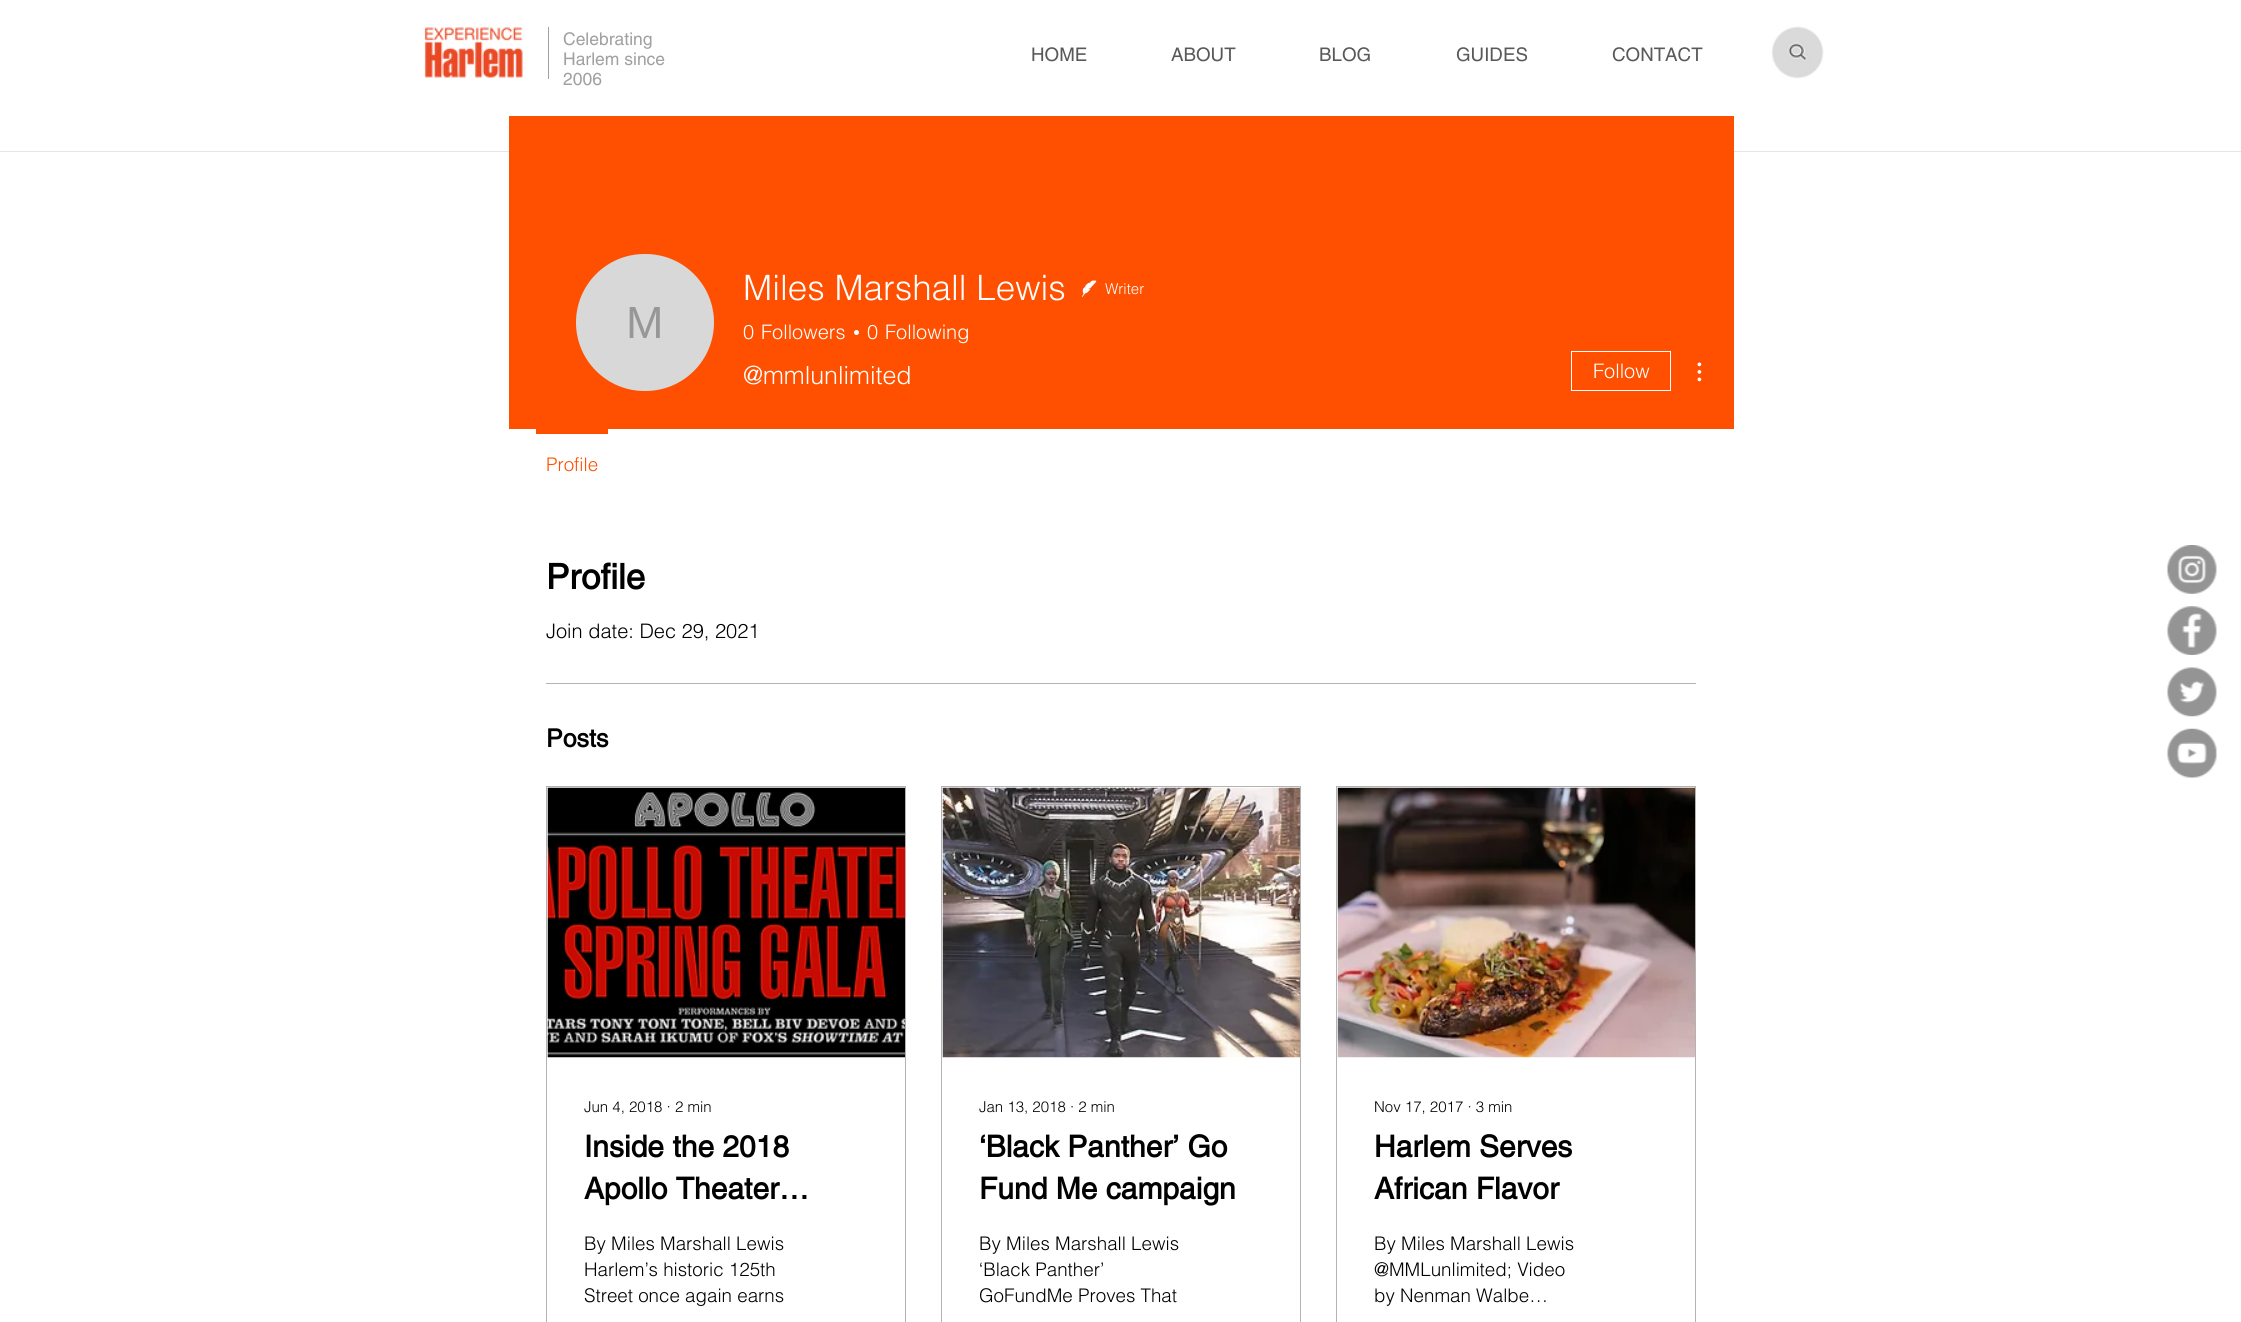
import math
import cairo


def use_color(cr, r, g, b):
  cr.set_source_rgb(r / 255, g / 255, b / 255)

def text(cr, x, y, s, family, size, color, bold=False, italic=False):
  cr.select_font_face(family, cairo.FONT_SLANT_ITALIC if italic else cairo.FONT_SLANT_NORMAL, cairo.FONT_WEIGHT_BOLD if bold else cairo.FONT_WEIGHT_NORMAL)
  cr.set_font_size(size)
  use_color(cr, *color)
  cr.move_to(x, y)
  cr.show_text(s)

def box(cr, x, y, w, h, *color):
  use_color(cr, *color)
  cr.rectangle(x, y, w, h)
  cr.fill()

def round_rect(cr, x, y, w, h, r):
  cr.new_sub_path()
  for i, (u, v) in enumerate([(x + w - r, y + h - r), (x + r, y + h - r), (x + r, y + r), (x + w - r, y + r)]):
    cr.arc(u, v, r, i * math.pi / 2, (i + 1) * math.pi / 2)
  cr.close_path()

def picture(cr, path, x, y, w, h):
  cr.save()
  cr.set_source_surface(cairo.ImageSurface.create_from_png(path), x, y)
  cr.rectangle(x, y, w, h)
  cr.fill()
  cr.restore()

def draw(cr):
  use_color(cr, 255, 255, 255)
  cr.paint()
  picture(cr, "img_01.png", 424, 27, 99, 51)
  box(cr, 548, 27, 1, 52, 160, 160, 160)
  picture(cr, "img_02.png", 1771, 26, 53, 53)
  box(cr, 0, 151, 2241, 1, 230, 230, 230)
  box(cr, 509, 116, 1225, 313, 254, 80, 0)
  use_color(cr, 216, 216, 216)
  round_rect(cr, 576, 254, 138, 137, 68.5)
  cr.fill()
  picture(cr, "img_03.png", 1082, 280, 15, 17)
  use_color(cr, 255, 255, 255)
  cr.arc(856.5, 332.5, 2.5, 0, 2 * math.pi)
  cr.fill()
  cr.rectangle(1571.5, 351.5, 99, 39)
  cr.set_line_width(1)
  cr.stroke()
  picture(cr, "img_04.png", 1697, 362, 5, 20)
  box(cr, 536, 429, 72, 5, 254, 80, 0)
  box(cr, 546, 683, 1150, 1, 179, 179, 179)
  cr.rectangle(546.5, 786.5, 359, 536)
  cr.stroke()
  picture(cr, "img_05.png", 547, 787, 358, 271)
  cr.rectangle(941.5, 786.5, 359, 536)
  cr.stroke()
  picture(cr, "img_06.png", 942, 787, 358, 271)
  cr.rectangle(1336.5, 786.5, 359, 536)
  cr.stroke()
  picture(cr, "img_07.png", 1337, 787, 358, 271)
  picture(cr, "img_08.png", 2167, 545, 50, 49)
  picture(cr, "img_09.png", 2167, 606, 50, 49)
  picture(cr, "img_10.png", 2167, 667, 50, 50)
  picture(cr, "img_11.png", 2167, 728, 50, 50)
  text(cr, 563, 45, "Celebrating", "helvetica", 17.5, (160, 160, 160))
  text(cr, 563, 65, "Harlem since", "helvetica", 17.5, (160, 160, 160))
  text(cr, 563, 85, "2006", "helvetica", 17.5, (160, 160, 160))
  text(cr, 1031, 61, "HOME", "helvetica", 18.75, (89, 89, 89))
  text(cr, 1171, 61, "ABOUT", "helvetica", 18.75, (89, 89, 89))
  text(cr, 1319, 61, "BLOG", "helvetica", 18.75, (89, 89, 89))
  text(cr, 1456, 61, "GUIDES", "helvetica", 18.75, (89, 89, 89))
  text(cr, 1612, 61, "CONTACT", "helvetica", 18.75, (89, 89, 89))
  text(cr, 626, 338, "M", "Liberation Sans", 45, (151, 151, 151))
  text(cr, 743, 300, "Miles Marshall Lewis", "helvetica Light", 35, (255, 255, 255))
  text(cr, 1105, 294, "Writer", "helvetica Light", 15, (255, 255, 255))
  text(cr, 743, 339, "0", "helvetica Light", 20, (255, 255, 255))
  text(cr, 761, 339, "Followers", "helvetica Light", 20, (255, 255, 255))
  text(cr, 867, 339, "0", "helvetica Light", 20, (255, 255, 255))
  text(cr, 885, 339, "Following", "helvetica Light", 20, (255, 255, 255))
  text(cr, 743, 384, "@mmlunlimited", "helvetica Light", 25, (255, 255, 255))
  text(cr, 1593, 378, "Follow", "helvetica Light", 20, (255, 255, 255))
  text(cr, 546, 471, "Profile", "helvetica Light", 18.75, (254, 80, 0))
  text(cr, 546, 589, "Profile", "helvetica", 35, (0, 0, 0), bold=True)
  text(cr, 546, 638, "Join date: Dec 29, 2021", "helvetica Light", 20, (0, 0, 0))
  text(cr, 546, 747, "Posts", "helvetica", 25, (0, 0, 0), bold=True)
  text(cr, 584, 1112, "Jun 4, 2018 ∙ 2 min", "helvetica Light", 15, (0, 0, 0))
  text(cr, 584, 1157, "Inside the 2018", "helvetica", 30, (0, 0, 0), bold=True)
  text(cr, 584, 1199, "Apollo Theater…", "helvetica", 30, (0, 0, 0), bold=True)
  text(cr, 584, 1250, "By Miles Marshall Lewis", "helvetica Light", 18.75, (0, 0, 0))
  text(cr, 584, 1276, "Harlem’s historic 125th", "helvetica Light", 18.75, (0, 0, 0))
  text(cr, 584, 1302, "Street once again earns", "helvetica Light", 18.75, (0, 0, 0))
  text(cr, 979, 1112, "Jan 13, 2018 ∙ 2 min", "helvetica Light", 15, (0, 0, 0))
  text(cr, 979, 1157, "‘Black Panther’ Go", "helvetica", 30, (0, 0, 0), bold=True)
  text(cr, 979, 1199, "Fund Me campaign", "helvetica", 30, (0, 0, 0), bold=True)
  text(cr, 979, 1250, "By Miles Marshall Lewis", "helvetica Light", 18.75, (0, 0, 0))
  text(cr, 979, 1276, "‘Black Panther’", "helvetica Light", 18.75, (0, 0, 0))
  text(cr, 979, 1302, "GoFundMe Proves That", "helvetica Light", 18.75, (0, 0, 0))
  text(cr, 1374, 1112, "Nov 17, 2017 ∙ 3 min", "helvetica Light", 15, (0, 0, 0))
  text(cr, 1374, 1157, "Harlem Serves", "helvetica", 30, (0, 0, 0), bold=True)
  text(cr, 1374, 1199, "African Flavor", "helvetica", 30, (0, 0, 0), bold=True)
  text(cr, 1374, 1250, "By Miles Marshall Lewis", "helvetica Light", 18.75, (0, 0, 0))
  text(cr, 1374, 1276, "@MMLunlimited; Video", "helvetica Light", 18.75, (0, 0, 0))
  text(cr, 1374, 1302, "by Nenman Walbe…", "helvetica Light", 18.75, (0, 0, 0))


surface = cairo.ImageSurface(cairo.FORMAT_RGB24, 2241, 1322)
cr = cairo.Context(surface)
options = cairo.FontOptions()
options.set_hint_metrics(cairo.HINT_METRICS_OFF)
options.set_hint_style(cairo.HINT_STYLE_NONE)
cr.set_font_options(options)
cr.set_miter_limit(4)
draw(cr)
surface.write_to_png("out.png")
